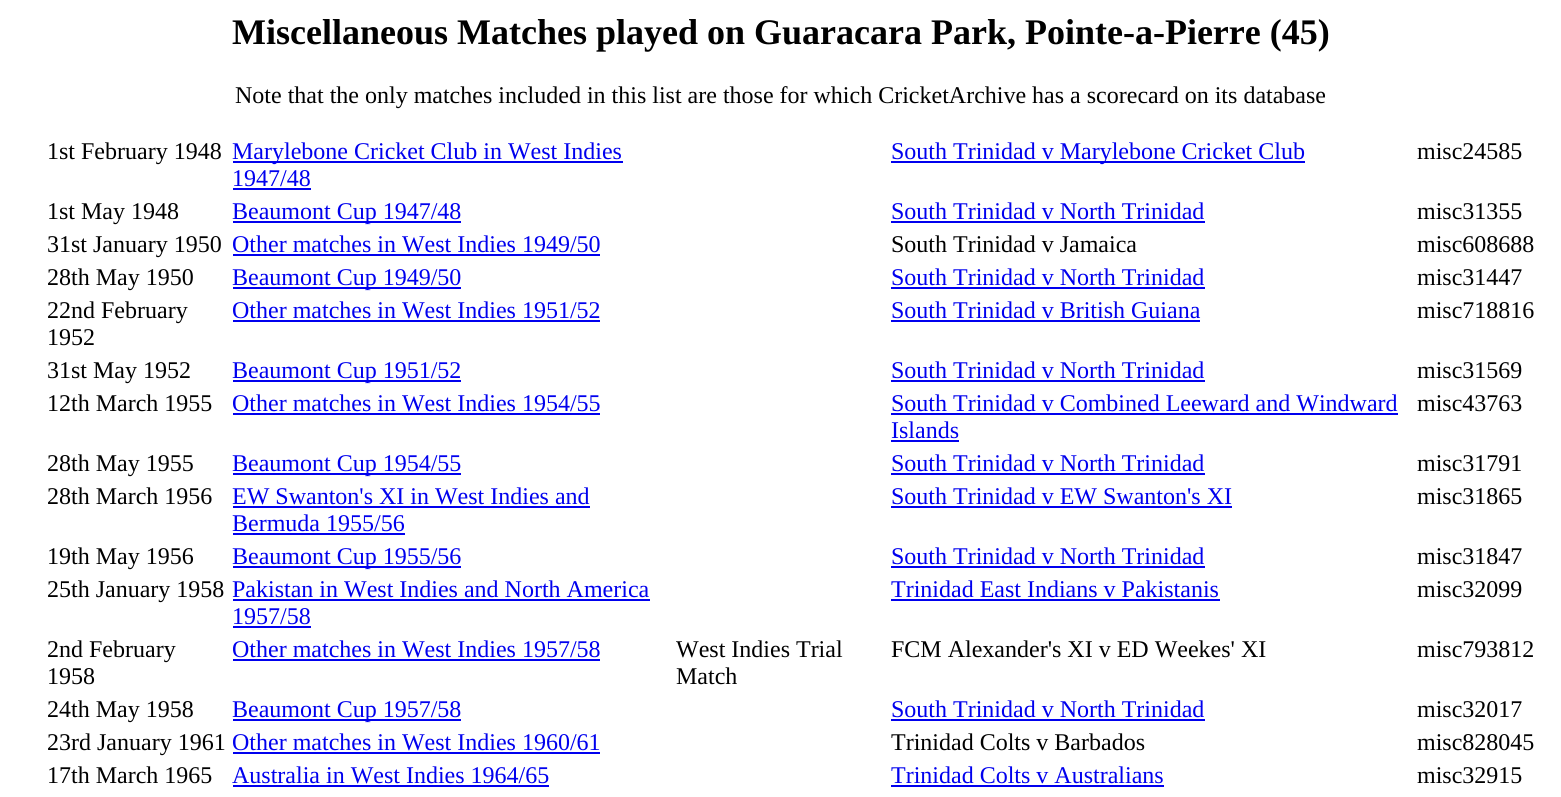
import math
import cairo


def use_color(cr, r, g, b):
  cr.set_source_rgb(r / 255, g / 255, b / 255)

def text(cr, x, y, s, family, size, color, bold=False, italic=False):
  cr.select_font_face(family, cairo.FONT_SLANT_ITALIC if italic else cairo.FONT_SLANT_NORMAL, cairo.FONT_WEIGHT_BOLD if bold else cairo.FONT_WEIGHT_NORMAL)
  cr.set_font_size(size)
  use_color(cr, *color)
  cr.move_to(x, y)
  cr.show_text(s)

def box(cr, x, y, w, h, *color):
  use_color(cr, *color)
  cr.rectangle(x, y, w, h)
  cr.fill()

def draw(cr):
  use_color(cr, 255, 255, 255)
  cr.paint()
  box(cr, 233, 161, 390, 2, 0, 0, 238)
  box(cr, 233, 188, 78, 2, 0, 0, 238)
  box(cr, 891, 161, 414, 2, 0, 0, 238)
  box(cr, 233, 221, 228, 2, 0, 0, 238)
  box(cr, 891, 221, 314, 2, 0, 0, 238)
  box(cr, 233, 254, 367, 2, 0, 0, 238)
  box(cr, 233, 287, 228, 2, 0, 0, 238)
  box(cr, 891, 287, 314, 2, 0, 0, 238)
  box(cr, 233, 320, 367, 2, 0, 0, 238)
  box(cr, 891, 320, 309, 2, 0, 0, 238)
  box(cr, 233, 380, 228, 2, 0, 0, 238)
  box(cr, 891, 380, 314, 2, 0, 0, 238)
  box(cr, 233, 413, 367, 2, 0, 0, 238)
  box(cr, 891, 413, 507, 2, 0, 0, 238)
  box(cr, 891, 440, 68, 2, 0, 0, 238)
  box(cr, 233, 473, 228, 2, 0, 0, 238)
  box(cr, 891, 473, 314, 2, 0, 0, 238)
  box(cr, 233, 506, 357, 2, 0, 0, 238)
  box(cr, 233, 533, 172, 2, 0, 0, 238)
  box(cr, 891, 506, 341, 2, 0, 0, 238)
  box(cr, 233, 566, 228, 2, 0, 0, 238)
  box(cr, 891, 566, 314, 2, 0, 0, 238)
  box(cr, 233, 599, 417, 2, 0, 0, 238)
  box(cr, 233, 626, 78, 2, 0, 0, 238)
  box(cr, 891, 599, 329, 2, 0, 0, 238)
  box(cr, 233, 659, 367, 2, 0, 0, 238)
  box(cr, 233, 719, 228, 2, 0, 0, 238)
  box(cr, 891, 719, 314, 2, 0, 0, 238)
  box(cr, 233, 752, 367, 2, 0, 0, 238)
  box(cr, 233, 785, 316, 2, 0, 0, 238)
  box(cr, 891, 785, 273, 2, 0, 0, 238)
  text(cr, 232, 44, "Miscellaneous Matches played on Guaracara Park, Pointe-a-Pierre (45)", "Liberation Serif", 36, (0, 0, 0), bold=True)
  text(cr, 235, 103, "Note that the only matches included in this list are those for which CricketArchive has a scorecard on its database", "Liberation Serif", 24, (0, 0, 0))
  text(cr, 47, 159, "1st February 1948", "Liberation Serif", 24, (0, 0, 0))
  text(cr, 232, 159, "Marylebone Cricket Club in West Indies", "Liberation Serif", 24, (0, 0, 238))
  text(cr, 232, 186, "1947/48", "Liberation Serif", 24, (0, 0, 238))
  text(cr, 891, 159, "South Trinidad v Marylebone Cricket Club", "Liberation Serif", 24, (0, 0, 238))
  text(cr, 1417, 159, "misc24585", "Liberation Serif", 24, (0, 0, 0))
  text(cr, 47, 219, "1st May 1948", "Liberation Serif", 24, (0, 0, 0))
  text(cr, 232, 219, "Beaumont Cup 1947/48", "Liberation Serif", 24, (0, 0, 238))
  text(cr, 891, 219, "South Trinidad v North Trinidad", "Liberation Serif", 24, (0, 0, 238))
  text(cr, 1417, 219, "misc31355", "Liberation Serif", 24, (0, 0, 0))
  text(cr, 47, 252, "31st January 1950", "Liberation Serif", 24, (0, 0, 0))
  text(cr, 232, 252, "Other matches in West Indies 1949/50", "Liberation Serif", 24, (0, 0, 238))
  text(cr, 891, 252, "South Trinidad v Jamaica", "Liberation Serif", 24, (0, 0, 0))
  text(cr, 1417, 252, "misc608688", "Liberation Serif", 24, (0, 0, 0))
  text(cr, 47, 285, "28th May 1950", "Liberation Serif", 24, (0, 0, 0))
  text(cr, 232, 285, "Beaumont Cup 1949/50", "Liberation Serif", 24, (0, 0, 238))
  text(cr, 891, 285, "South Trinidad v North Trinidad", "Liberation Serif", 24, (0, 0, 238))
  text(cr, 1417, 285, "misc31447", "Liberation Serif", 24, (0, 0, 0))
  text(cr, 47, 318, "22nd February", "Liberation Serif", 24, (0, 0, 0))
  text(cr, 47, 345, "1952", "Liberation Serif", 24, (0, 0, 0))
  text(cr, 232, 318, "Other matches in West Indies 1951/52", "Liberation Serif", 24, (0, 0, 238))
  text(cr, 891, 318, "South Trinidad v British Guiana", "Liberation Serif", 24, (0, 0, 238))
  text(cr, 1417, 318, "misc718816", "Liberation Serif", 24, (0, 0, 0))
  text(cr, 47, 378, "31st May 1952", "Liberation Serif", 24, (0, 0, 0))
  text(cr, 232, 378, "Beaumont Cup 1951/52", "Liberation Serif", 24, (0, 0, 238))
  text(cr, 891, 378, "South Trinidad v North Trinidad", "Liberation Serif", 24, (0, 0, 238))
  text(cr, 1417, 378, "misc31569", "Liberation Serif", 24, (0, 0, 0))
  text(cr, 47, 411, "12th March 1955", "Liberation Serif", 24, (0, 0, 0))
  text(cr, 232, 411, "Other matches in West Indies 1954/55", "Liberation Serif", 24, (0, 0, 238))
  text(cr, 891, 411, "South Trinidad v Combined Leeward and Windward", "Liberation Serif", 24, (0, 0, 238))
  text(cr, 891, 438, "Islands", "Liberation Serif", 24, (0, 0, 238))
  text(cr, 1417, 411, "misc43763", "Liberation Serif", 24, (0, 0, 0))
  text(cr, 47, 471, "28th May 1955", "Liberation Serif", 24, (0, 0, 0))
  text(cr, 232, 471, "Beaumont Cup 1954/55", "Liberation Serif", 24, (0, 0, 238))
  text(cr, 891, 471, "South Trinidad v North Trinidad", "Liberation Serif", 24, (0, 0, 238))
  text(cr, 1417, 471, "misc31791", "Liberation Serif", 24, (0, 0, 0))
  text(cr, 47, 504, "28th March 1956", "Liberation Serif", 24, (0, 0, 0))
  text(cr, 232, 504, "EW Swanton's XI in West Indies and", "Liberation Serif", 24, (0, 0, 238))
  text(cr, 232, 531, "Bermuda 1955/56", "Liberation Serif", 24, (0, 0, 238))
  text(cr, 891, 504, "South Trinidad v EW Swanton's XI", "Liberation Serif", 24, (0, 0, 238))
  text(cr, 1417, 504, "misc31865", "Liberation Serif", 24, (0, 0, 0))
  text(cr, 47, 564, "19th May 1956", "Liberation Serif", 24, (0, 0, 0))
  text(cr, 232, 564, "Beaumont Cup 1955/56", "Liberation Serif", 24, (0, 0, 238))
  text(cr, 891, 564, "South Trinidad v North Trinidad", "Liberation Serif", 24, (0, 0, 238))
  text(cr, 1417, 564, "misc31847", "Liberation Serif", 24, (0, 0, 0))
  text(cr, 47, 597, "25th January 1958", "Liberation Serif", 24, (0, 0, 0))
  text(cr, 232, 597, "Pakistan in West Indies and North America", "Liberation Serif", 24, (0, 0, 238))
  text(cr, 232, 624, "1957/58", "Liberation Serif", 24, (0, 0, 238))
  text(cr, 891, 597, "Trinidad East Indians v Pakistanis", "Liberation Serif", 24, (0, 0, 238))
  text(cr, 1417, 597, "misc32099", "Liberation Serif", 24, (0, 0, 0))
  text(cr, 47, 657, "2nd February", "Liberation Serif", 24, (0, 0, 0))
  text(cr, 47, 684, "1958", "Liberation Serif", 24, (0, 0, 0))
  text(cr, 232, 657, "Other matches in West Indies 1957/58", "Liberation Serif", 24, (0, 0, 238))
  text(cr, 676, 657, "West Indies Trial", "Liberation Serif", 24, (0, 0, 0))
  text(cr, 676, 684, "Match", "Liberation Serif", 24, (0, 0, 0))
  text(cr, 891, 657, "FCM Alexander's XI v ED Weekes' XI", "Liberation Serif", 24, (0, 0, 0))
  text(cr, 1417, 657, "misc793812", "Liberation Serif", 24, (0, 0, 0))
  text(cr, 47, 717, "24th May 1958", "Liberation Serif", 24, (0, 0, 0))
  text(cr, 232, 717, "Beaumont Cup 1957/58", "Liberation Serif", 24, (0, 0, 238))
  text(cr, 891, 717, "South Trinidad v North Trinidad", "Liberation Serif", 24, (0, 0, 238))
  text(cr, 1417, 717, "misc32017", "Liberation Serif", 24, (0, 0, 0))
  text(cr, 47, 750, "23rd January 1961", "Liberation Serif", 24, (0, 0, 0))
  text(cr, 232, 750, "Other matches in West Indies 1960/61", "Liberation Serif", 24, (0, 0, 238))
  text(cr, 891, 750, "Trinidad Colts v Barbados", "Liberation Serif", 24, (0, 0, 0))
  text(cr, 1417, 750, "misc828045", "Liberation Serif", 24, (0, 0, 0))
  text(cr, 47, 783, "17th March 1965", "Liberation Serif", 24, (0, 0, 0))
  text(cr, 232, 783, "Australia in West Indies 1964/65", "Liberation Serif", 24, (0, 0, 238))
  text(cr, 891, 783, "Trinidad Colts v Australians", "Liberation Serif", 24, (0, 0, 238))
  text(cr, 1417, 783, "misc32915", "Liberation Serif", 24, (0, 0, 0))


surface = cairo.ImageSurface(cairo.FORMAT_RGB24, 1561, 797)
cr = cairo.Context(surface)
options = cairo.FontOptions()
options.set_hint_metrics(cairo.HINT_METRICS_OFF)
options.set_hint_style(cairo.HINT_STYLE_NONE)
cr.set_font_options(options)
cr.set_miter_limit(4)
draw(cr)
surface.write_to_png("out.png")
